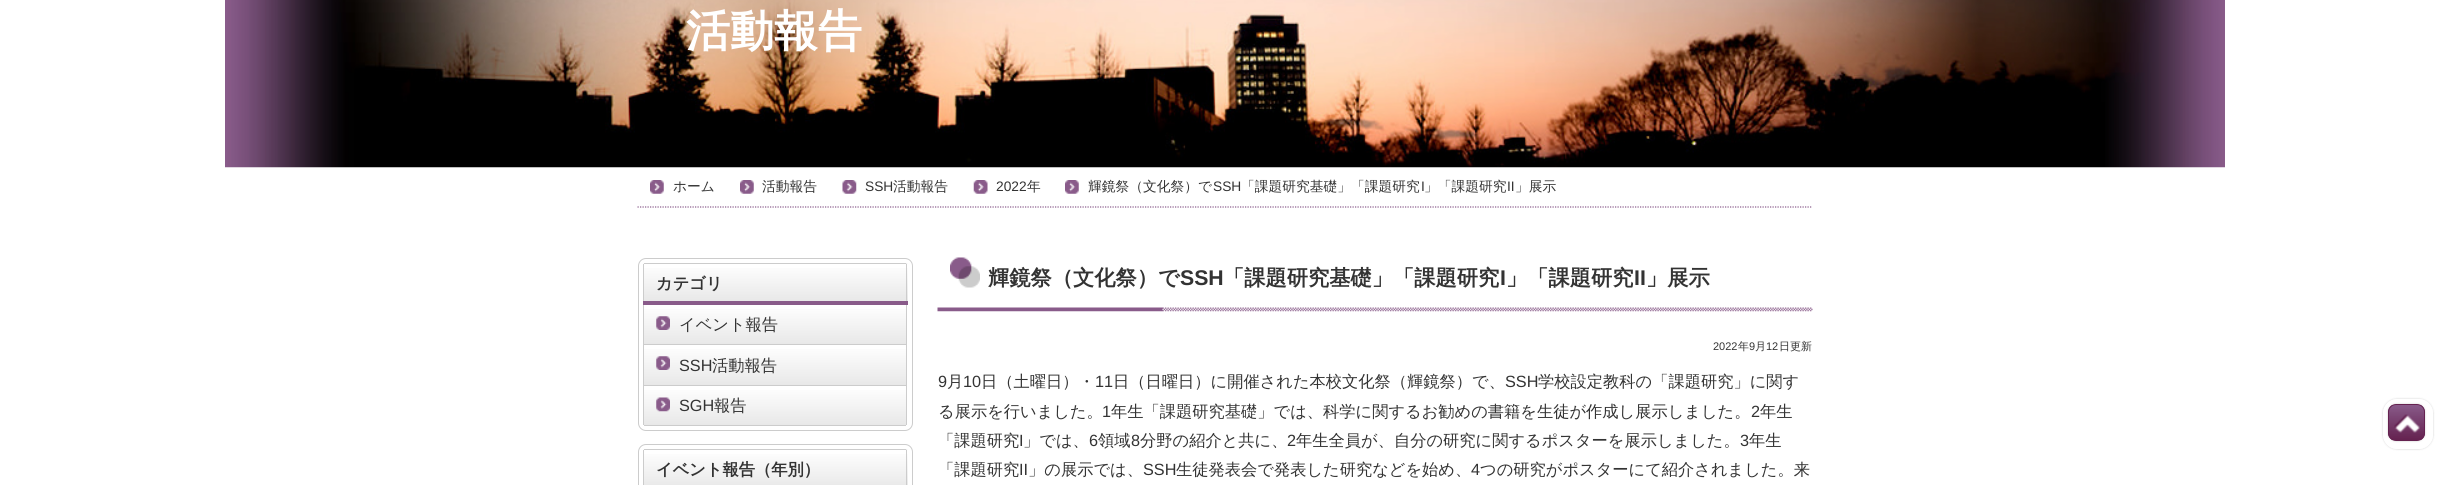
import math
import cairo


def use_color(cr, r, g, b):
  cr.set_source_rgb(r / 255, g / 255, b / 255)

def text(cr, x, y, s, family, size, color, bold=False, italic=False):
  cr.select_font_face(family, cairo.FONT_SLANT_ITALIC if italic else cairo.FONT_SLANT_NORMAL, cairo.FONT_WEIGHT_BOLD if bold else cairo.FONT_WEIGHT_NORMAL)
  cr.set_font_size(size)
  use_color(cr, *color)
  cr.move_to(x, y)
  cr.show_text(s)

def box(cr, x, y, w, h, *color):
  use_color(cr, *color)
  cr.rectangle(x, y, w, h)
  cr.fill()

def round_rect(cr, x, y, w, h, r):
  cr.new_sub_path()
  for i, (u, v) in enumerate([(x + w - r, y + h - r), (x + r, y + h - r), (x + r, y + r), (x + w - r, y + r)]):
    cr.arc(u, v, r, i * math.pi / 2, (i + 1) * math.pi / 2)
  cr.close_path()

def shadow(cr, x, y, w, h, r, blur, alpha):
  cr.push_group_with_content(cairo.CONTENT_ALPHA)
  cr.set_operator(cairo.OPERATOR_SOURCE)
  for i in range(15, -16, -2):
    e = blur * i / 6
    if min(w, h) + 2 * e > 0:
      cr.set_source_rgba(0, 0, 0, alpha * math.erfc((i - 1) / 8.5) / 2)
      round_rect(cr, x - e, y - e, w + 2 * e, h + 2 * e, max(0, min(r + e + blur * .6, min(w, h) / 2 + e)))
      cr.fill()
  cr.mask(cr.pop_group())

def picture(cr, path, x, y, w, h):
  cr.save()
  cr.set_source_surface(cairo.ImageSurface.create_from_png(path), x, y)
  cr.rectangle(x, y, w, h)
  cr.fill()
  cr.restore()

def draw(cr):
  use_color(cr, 255, 255, 255)
  cr.paint()
  picture(cr, "img_01.png", 225, 0, 2000, 168)
  cr.new_path()
  cr.move_to(637.5, 207)
  cr.line_to(1812.5, 207)
  use_color(cr, 137, 91, 138)
  cr.set_line_width(1.2)
  cr.set_dash([1.25, 1.25])
  cr.stroke()
  picture(cr, "img_02.png", 650, 180, 14, 14)
  picture(cr, "img_03.png", 740, 180, 14, 14)
  picture(cr, "img_04.png", 842, 180, 15, 14)
  picture(cr, "img_05.png", 973, 180, 15, 14)
  picture(cr, "img_02.png", 1065, 180, 14, 14)
  round_rect(cr, 638.5, 258.5, 274, 172, 7.5)
  use_color(cr, 204, 204, 204)
  cr.set_line_width(1)
  cr.set_dash([])
  cr.stroke()
  cr.save()
  cr.new_path()
  cr.move_to(645.5, 263)
  cr.line_to(905.5, 263)
  cr.curve_to(907, 263, 908, 264, 908, 265.5)
  cr.line_to(908, 301)
  cr.line_to(643, 301)
  cr.line_to(643, 265.5)
  cr.curve_to(643, 264, 644, 263, 645.5, 263)
  cr.close_path()
  cr.clip()
  gradient = cairo.LinearGradient(775, 226, 775, 264)
  gradient.add_color_stop_rgba(0, 1, 1, 1, 1)
  gradient.add_color_stop_rgba(1, 0.91, 0.91, 0.91, 1)
  cr.set_source(gradient)
  cr.rectangle(643, 263, 265, 1)
  cr.fill()
  cr.restore()
  gradient = cairo.LinearGradient(775, 264, 775, 301)
  gradient.add_color_stop_rgba(0, 1, 1, 1, 1)
  gradient.add_color_stop_rgba(1, 0.91, 0.91, 0.91, 1)
  cr.set_source(gradient)
  cr.rectangle(644, 268, 264, 33)
  cr.fill()
  box(cr, 644, 263, 262, 1, 204, 204, 204)
  box(cr, 906, 264, 1, 37, 204, 204, 204)
  box(cr, 643, 264, 1, 37, 204, 204, 204)
  box(cr, 643, 301, 265, 4, 137, 91, 138)
  box(cr, 906, 305, 1, 120, 204, 204, 204)
  box(cr, 644, 425, 262, 1, 204, 204, 204)
  box(cr, 643, 305, 1, 120, 204, 204, 204)
  gradient = cairo.LinearGradient(775, 305, 775, 344)
  gradient.add_color_stop_rgba(0, 1, 1, 1, 1)
  gradient.add_color_stop_rgba(1, 0.91, 0.91, 0.91, 1)
  cr.set_source(gradient)
  cr.rectangle(644, 309, 262, 35)
  cr.fill()
  picture(cr, "img_06.png", 656, 316, 14, 14)
  gradient = cairo.LinearGradient(775, 345, 775, 385)
  gradient.add_color_stop_rgba(0, 1, 1, 1, 1)
  gradient.add_color_stop_rgba(1, 0.91, 0.91, 0.91, 1)
  cr.set_source(gradient)
  cr.rectangle(644, 349, 262, 36)
  cr.fill()
  box(cr, 644, 344, 262, 1, 204, 204, 204)
  picture(cr, "img_07.png", 656, 356, 14, 14)
  gradient = cairo.LinearGradient(775, 386, 775, 425)
  gradient.add_color_stop_rgba(0, 1, 1, 1, 1)
  gradient.add_color_stop_rgba(1, 0.91, 0.91, 0.91, 1)
  cr.set_source(gradient)
  cr.rectangle(644, 390, 262, 35)
  cr.fill()
  box(cr, 644, 385, 262, 1, 204, 204, 204)
  picture(cr, "img_08.png", 656, 397, 14, 15)
  round_rect(cr, 638.5, 444.5, 274, 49, 7.5)
  cr.stroke()
  cr.save()
  cr.new_path()
  cr.move_to(645.5, 449)
  cr.line_to(905.5, 449)
  cr.curve_to(907, 449, 908, 450, 908, 451.5)
  cr.line_to(908, 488)
  cr.line_to(643, 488)
  cr.line_to(643, 451.5)
  cr.curve_to(643, 450, 644, 449, 645.5, 449)
  cr.close_path()
  cr.clip()
  gradient = cairo.LinearGradient(775, 413, 775, 450)
  gradient.add_color_stop_rgba(0, 1, 1, 1, 1)
  gradient.add_color_stop_rgba(1, 0.91, 0.91, 0.91, 1)
  cr.set_source(gradient)
  cr.rectangle(643, 449, 265, 1)
  cr.fill()
  cr.restore()
  gradient = cairo.LinearGradient(775, 450, 775, 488)
  gradient.add_color_stop_rgba(0, 1, 1, 1, 1)
  gradient.add_color_stop_rgba(1, 0.91, 0.91, 0.91, 1)
  cr.set_source(gradient)
  cr.rectangle(644, 454, 264, 31)
  cr.fill()
  box(cr, 644, 449, 262, 1, 204, 204, 204)
  box(cr, 906, 450, 1, 35, 204, 204, 204)
  box(cr, 643, 450, 1, 35, 204, 204, 204)
  picture(cr, "img_09.png", 937, 307, 876, 5)
  picture(cr, "img_10.png", 950, 257, 30, 31)
  cr.save()
  cr.set_fill_rule(cairo.FILL_RULE_EVEN_ODD)
  cr.new_path()
  cr.move_to(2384, 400)
  cr.line_to(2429, 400)
  cr.line_to(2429, 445)
  cr.line_to(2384, 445)
  cr.close_path()
  cr.move_to(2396, 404)
  cr.line_to(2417, 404)
  cr.curve_to(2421.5, 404, 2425, 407.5, 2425, 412)
  cr.line_to(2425, 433)
  cr.curve_to(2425, 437.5, 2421.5, 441, 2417, 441)
  cr.line_to(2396, 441)
  cr.curve_to(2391.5, 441, 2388, 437.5, 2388, 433)
  cr.line_to(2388, 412)
  cr.curve_to(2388, 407.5, 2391.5, 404, 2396, 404)
  cr.close_path()
  cr.clip()
  use_color(cr, 0, 0, 0)
  shadow(cr, 2388, 404, 37, 37, 8, 1, 0.2)
  cr.restore()
  cr.save()
  round_rect(cr, 2388, 404, 37, 37, 8)
  cr.clip()
  gradient = cairo.LinearGradient(2389, 405, 2389, 440)
  gradient.add_color_stop_rgba(0, 0.537, 0.357, 0.541, 1)
  gradient.add_color_stop_rgba(1, 0.329, 0.039, 0.239, 0.9)
  cr.set_source(gradient)
  cr.rectangle(2388, 405, 37, 35)
  cr.fill()
  cr.restore()
  round_rect(cr, 2388.5, 404.5, 36, 36, 7.5)
  use_color(cr, 101, 34, 80)
  cr.stroke()
  cr.save()
  cr.set_fill_rule(cairo.FILL_RULE_EVEN_ODD)
  cr.new_path()
  cr.move_to(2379, 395)
  cr.line_to(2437, 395)
  cr.line_to(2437, 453)
  cr.line_to(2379, 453)
  cr.close_path()
  cr.move_to(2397, 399)
  cr.line_to(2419, 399)
  cr.curve_to(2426.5, 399, 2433, 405.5, 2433, 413)
  cr.line_to(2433, 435)
  cr.curve_to(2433, 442.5, 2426.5, 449, 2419, 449)
  cr.line_to(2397, 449)
  cr.curve_to(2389.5, 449, 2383, 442.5, 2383, 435)
  cr.line_to(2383, 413)
  cr.curve_to(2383, 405.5, 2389.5, 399, 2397, 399)
  cr.close_path()
  cr.clip()
  use_color(cr, 0, 0, 0)
  shadow(cr, 2383, 399, 50, 50, 14, 1, 0.2)
  cr.restore()
  picture(cr, "img_11.png", 2394, 414, 26, 19)
  text(cr, 686, 46, "活動報告", "WenQuanYi Zen Hei", 44, (255, 255, 255), bold=True)
  text(cr, 673, 191, "ホーム", "WenQuanYi Zen Hei Medium", 13.75, (51, 51, 51))
  text(cr, 762, 191, "活動報告", "WenQuanYi Zen Hei Medium", 13.75, (51, 51, 51))
  text(cr, 865, 191, "SSH", "Liberation Sans", 13.75, (51, 51, 51))
  text(cr, 893, 191, "活動報告", "WenQuanYi Zen Hei Medium", 13.75, (51, 51, 51))
  text(cr, 996, 191, "2022", "Liberation Sans", 13.75, (51, 51, 51))
  text(cr, 1027, 191, "年", "WenQuanYi Zen Hei Medium", 13.75, (51, 51, 51))
  text(cr, 1088, 191, "輝鏡祭（文化祭）で", "WenQuanYi Zen Hei Medium", 13.75, (51, 51, 51))
  text(cr, 1213, 191, "SSH", "Liberation Sans", 13.75, (51, 51, 51))
  text(cr, 1241, 191, "「課題研究基礎」「課題研究", "WenQuanYi Zen Hei Medium", 13.75, (51, 51, 51))
  text(cr, 1421, 191, "I", "Liberation Sans", 13.75, (51, 51, 51))
  text(cr, 1424, 191, "」「課題研究", "WenQuanYi Zen Hei Medium", 13.75, (51, 51, 51))
  text(cr, 1507, 191, "II", "Liberation Sans", 13.75, (51, 51, 51))
  text(cr, 1515, 191, "」展示", "WenQuanYi Zen Hei Medium", 13.75, (51, 51, 51))
  text(cr, 656, 289, "カテゴリ", "WenQuanYi Zen Hei", 16.25, (51, 51, 51), bold=True)
  text(cr, 679, 330, "イベント報告", "WenQuanYi Zen Hei Medium", 16.25, (51, 51, 51))
  text(cr, 679, 371, "SSH", "Liberation Sans", 16.25, (51, 51, 51))
  text(cr, 712, 371, "活動報告", "WenQuanYi Zen Hei Medium", 16.25, (51, 51, 51))
  text(cr, 679, 411, "SGH", "Liberation Sans", 16.25, (51, 51, 51))
  text(cr, 714, 411, "報告", "WenQuanYi Zen Hei Medium", 16.25, (51, 51, 51))
  text(cr, 656, 475, "イベント報告（年別）", "WenQuanYi Zen Hei", 16.25, (51, 51, 51), bold=True)
  text(cr, 988, 285, "輝鏡祭（文化祭）で", "WenQuanYi Zen Hei", 21.25, (51, 51, 51), bold=True)
  text(cr, 1180, 285, "SSH", "Liberation Sans", 21.25, (51, 51, 51), bold=True)
  text(cr, 1223, 285, "「課題研究基礎」「課題研究", "WenQuanYi Zen Hei", 21.25, (51, 51, 51), bold=True)
  text(cr, 1500, 285, "I", "Liberation Sans", 21.25, (51, 51, 51), bold=True)
  text(cr, 1506, 285, "」「課題研究", "WenQuanYi Zen Hei", 21.25, (51, 51, 51), bold=True)
  text(cr, 1634, 285, "II", "Liberation Sans", 21.25, (51, 51, 51), bold=True)
  text(cr, 1646, 285, "」展示", "WenQuanYi Zen Hei", 21.25, (51, 51, 51), bold=True)
  text(cr, 1713, 350, "2022", "Liberation Sans", 11, (51, 51, 51))
  text(cr, 1738, 350, "年", "WenQuanYi Zen Hei Medium", 11, (51, 51, 51))
  text(cr, 1749, 350, "9", "Liberation Sans", 11, (51, 51, 51))
  text(cr, 1755, 350, "月", "WenQuanYi Zen Hei Medium", 11, (51, 51, 51))
  text(cr, 1766, 350, "12", "Liberation Sans", 11, (51, 51, 51))
  text(cr, 1779, 350, "日更新", "WenQuanYi Zen Hei Medium", 11, (51, 51, 51))
  text(cr, 938, 387, "9", "Liberation Sans", 16.25, (51, 51, 51))
  text(cr, 947, 387, "月", "WenQuanYi Zen Hei Medium", 16.25, (51, 51, 51))
  text(cr, 963, 387, "10", "Liberation Sans", 16.25, (51, 51, 51))
  text(cr, 981, 387, "日（土曜日）・", "WenQuanYi Zen Hei Medium", 16.25, (51, 51, 51))
  text(cr, 1095, 387, "11", "Liberation Sans", 16.25, (51, 51, 51))
  text(cr, 1113, 387, "日（日曜日）に開催された本校文化祭（輝鏡祭）で、", "WenQuanYi Zen Hei Medium", 16.25, (51, 51, 51))
  text(cr, 1505, 387, "SSH", "Liberation Sans", 16.25, (51, 51, 51))
  text(cr, 1538, 387, "学校設定教科の「課題研究」に関す", "WenQuanYi Zen Hei Medium", 16.25, (51, 51, 51))
  text(cr, 938, 417, "る展示を行いました。", "WenQuanYi Zen Hei Medium", 16.25, (51, 51, 51))
  text(cr, 1102, 417, "1", "Liberation Sans", 16.25, (51, 51, 51))
  text(cr, 1111, 417, "年生「課題研究基礎」では、科学に関するお勧めの書籍を生徒が作成し展示しました。", "WenQuanYi Zen Hei Medium", 16.25, (51, 51, 51))
  text(cr, 1751, 417, "2", "Liberation Sans", 16.25, (51, 51, 51))
  text(cr, 1760, 417, "年生", "WenQuanYi Zen Hei Medium", 16.25, (51, 51, 51))
  text(cr, 938, 446, "「課題研究", "WenQuanYi Zen Hei Medium", 16.25, (51, 51, 51))
  text(cr, 1019, 446, "I", "Liberation Sans", 16.25, (51, 51, 51))
  text(cr, 1023, 446, "」では、", "WenQuanYi Zen Hei Medium", 16.25, (51, 51, 51))
  text(cr, 1089, 446, "6", "Liberation Sans", 16.25, (51, 51, 51))
  text(cr, 1098, 446, "領域", "WenQuanYi Zen Hei Medium", 16.25, (51, 51, 51))
  text(cr, 1131, 446, "8", "Liberation Sans", 16.25, (51, 51, 51))
  text(cr, 1140, 446, "分野の紹介と共に、", "WenQuanYi Zen Hei Medium", 16.25, (51, 51, 51))
  text(cr, 1287, 446, "2", "Liberation Sans", 16.25, (51, 51, 51))
  text(cr, 1296, 446, "年生全員が、自分の研究に関するポスターを展示しました。", "WenQuanYi Zen Hei Medium", 16.25, (51, 51, 51))
  text(cr, 1740, 446, "3", "Liberation Sans", 16.25, (51, 51, 51))
  text(cr, 1749, 446, "年生", "WenQuanYi Zen Hei Medium", 16.25, (51, 51, 51))
  text(cr, 938, 475, "「課題研究", "WenQuanYi Zen Hei Medium", 16.25, (51, 51, 51))
  text(cr, 1019, 475, "II", "Liberation Sans", 16.25, (51, 51, 51))
  text(cr, 1028, 475, "」の展示では、", "WenQuanYi Zen Hei Medium", 16.25, (51, 51, 51))
  text(cr, 1143, 475, "SSH", "Liberation Sans", 16.25, (51, 51, 51))
  text(cr, 1176, 475, "生徒発表会で発表した研究などを始め、", "WenQuanYi Zen Hei Medium", 16.25, (51, 51, 51))
  text(cr, 1471, 475, "4", "Liberation Sans", 16.25, (51, 51, 51))
  text(cr, 1480, 475, "つの研究がポスターにて紹介されました。来", "WenQuanYi Zen Hei Medium", 16.25, (51, 51, 51))


surface = cairo.ImageSurface(cairo.FORMAT_RGB24, 2450, 485)
cr = cairo.Context(surface)
options = cairo.FontOptions()
options.set_hint_metrics(cairo.HINT_METRICS_OFF)
options.set_hint_style(cairo.HINT_STYLE_NONE)
cr.set_font_options(options)
cr.set_miter_limit(4)
draw(cr)
surface.write_to_png("out.png")
